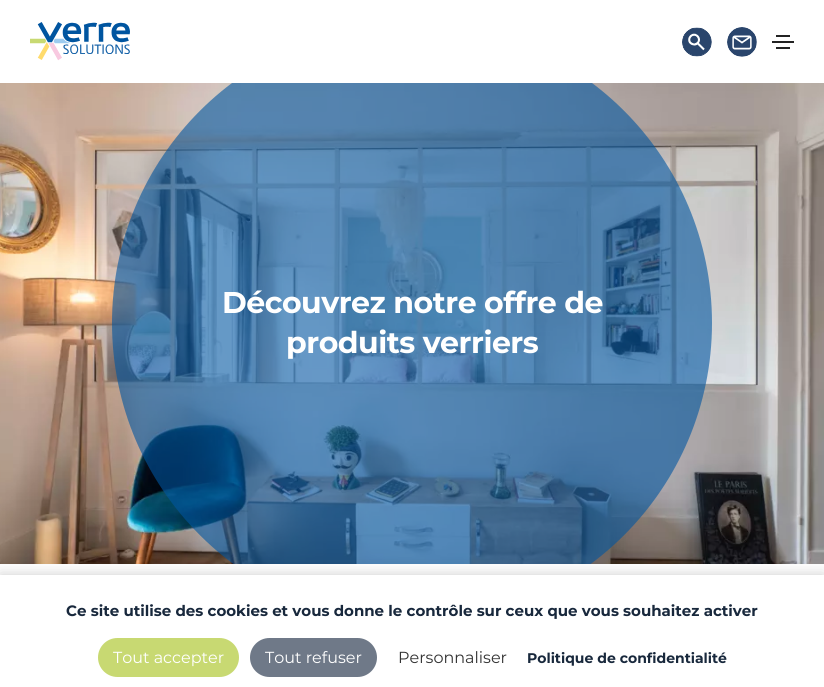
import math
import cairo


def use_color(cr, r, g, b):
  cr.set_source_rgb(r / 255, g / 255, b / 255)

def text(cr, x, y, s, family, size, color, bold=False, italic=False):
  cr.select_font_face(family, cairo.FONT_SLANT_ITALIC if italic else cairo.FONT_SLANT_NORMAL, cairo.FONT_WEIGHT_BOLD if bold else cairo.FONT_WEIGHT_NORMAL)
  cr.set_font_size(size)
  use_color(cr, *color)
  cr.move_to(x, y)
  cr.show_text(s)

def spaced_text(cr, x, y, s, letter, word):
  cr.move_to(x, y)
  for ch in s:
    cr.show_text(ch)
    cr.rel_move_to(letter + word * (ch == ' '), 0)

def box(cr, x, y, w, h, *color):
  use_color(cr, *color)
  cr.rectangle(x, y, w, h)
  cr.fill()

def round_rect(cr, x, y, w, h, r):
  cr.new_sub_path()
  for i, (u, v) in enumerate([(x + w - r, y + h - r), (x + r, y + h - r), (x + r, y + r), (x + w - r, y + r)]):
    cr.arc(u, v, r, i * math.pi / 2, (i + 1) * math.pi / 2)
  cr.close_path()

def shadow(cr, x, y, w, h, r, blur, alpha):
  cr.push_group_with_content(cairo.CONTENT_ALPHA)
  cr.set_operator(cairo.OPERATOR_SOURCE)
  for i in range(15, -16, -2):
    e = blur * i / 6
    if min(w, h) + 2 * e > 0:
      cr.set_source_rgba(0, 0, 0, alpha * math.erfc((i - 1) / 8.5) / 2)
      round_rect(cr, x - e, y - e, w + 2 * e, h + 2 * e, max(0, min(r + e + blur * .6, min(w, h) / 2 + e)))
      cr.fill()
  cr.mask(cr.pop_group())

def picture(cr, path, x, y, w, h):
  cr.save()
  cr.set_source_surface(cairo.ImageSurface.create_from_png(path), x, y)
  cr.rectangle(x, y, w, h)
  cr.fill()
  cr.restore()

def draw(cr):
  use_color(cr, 255, 255, 255)
  cr.paint()
  picture(cr, "img_04.png", 0, 83, 824, 481)
  cr.save()
  cr.rectangle(0, 83, 824, 481)
  cr.clip()
  cr.set_source_rgba(0, 0.333, 0.627, 0.6)
  cr.arc(412, 323, 300, 0, 2 * math.pi)
  cr.fill()
  cr.restore()
  picture(cr, "img_01.png", 30, 22, 100, 39)
  picture(cr, "img_02.png", 682, 27, 30, 30)
  picture(cr, "img_03.png", 727, 27, 30, 30)
  box(cr, 776, 35, 14, 2, 35, 35, 35)
  box(cr, 772, 41, 22, 2, 35, 35, 35)
  box(cr, 776, 47, 14, 2, 35, 35, 35)
  use_color(cr, 0, 0, 0)
  shadow(cr, 0, 575, 824, 112, 0, 7.5, 0.2)
  box(cr, 0, 575, 824, 112, 255, 255, 255)
  use_color(cr, 200, 217, 114)
  round_rect(cr, 98, 638, 141, 39, 19.5)
  cr.fill()
  use_color(cr, 111, 121, 136)
  round_rect(cr, 250, 638, 127, 39, 19.5)
  cr.fill()
  cr.select_font_face("Montserrat", cairo.FONT_SLANT_NORMAL, cairo.FONT_WEIGHT_BOLD)
  cr.set_font_size(30)
  use_color(cr, 255, 255, 255)
  spaced_text(cr, 222, 313, "Découvrez notre offre de", -0.5, 0)
  spaced_text(cr, 286, 353, "produits verriers", -0.5, 0)
  text(cr, 66, 616, "Ce site utilise des cookies et vous donne le contrôle sur ceux que vous souhaitez activer", "Montserrat", 15, (24, 40, 60), bold=True)
  text(cr, 113, 663, "Tout accepter", "Montserrat", 16, (255, 255, 255))
  text(cr, 265, 663, "Tout refuser", "Montserrat", 16, (255, 255, 255))
  text(cr, 398, 663, "Personnaliser", "Montserrat", 16, (51, 51, 51))
  text(cr, 527, 663, "Politique de confidentialité", "Montserrat", 14, (24, 40, 60), bold=True)


surface = cairo.ImageSurface(cairo.FORMAT_RGB24, 824, 687)
cr = cairo.Context(surface)
options = cairo.FontOptions()
options.set_hint_metrics(cairo.HINT_METRICS_OFF)
options.set_hint_style(cairo.HINT_STYLE_NONE)
cr.set_font_options(options)
cr.set_miter_limit(4)
draw(cr)
surface.write_to_png("out.png")
